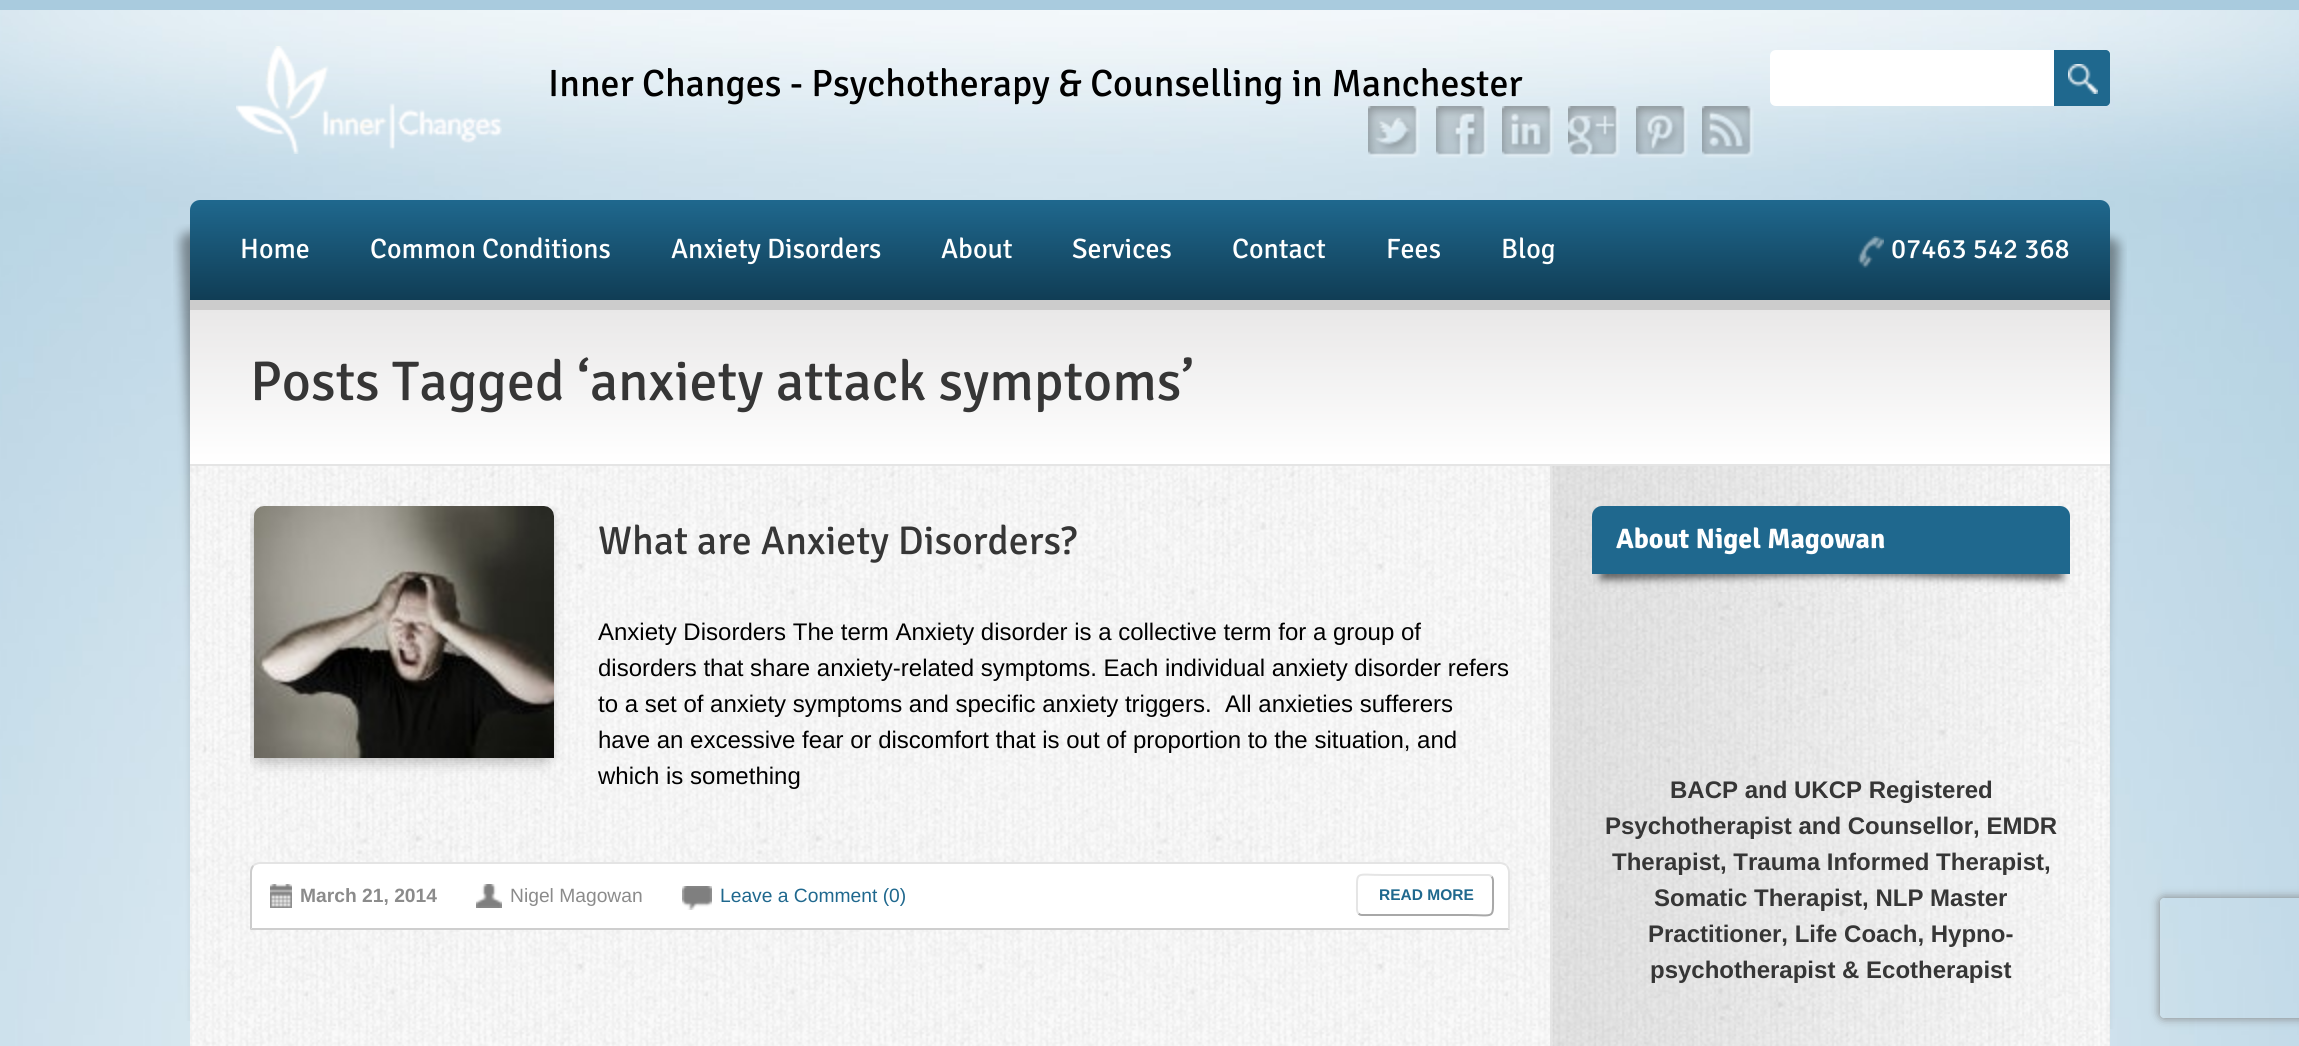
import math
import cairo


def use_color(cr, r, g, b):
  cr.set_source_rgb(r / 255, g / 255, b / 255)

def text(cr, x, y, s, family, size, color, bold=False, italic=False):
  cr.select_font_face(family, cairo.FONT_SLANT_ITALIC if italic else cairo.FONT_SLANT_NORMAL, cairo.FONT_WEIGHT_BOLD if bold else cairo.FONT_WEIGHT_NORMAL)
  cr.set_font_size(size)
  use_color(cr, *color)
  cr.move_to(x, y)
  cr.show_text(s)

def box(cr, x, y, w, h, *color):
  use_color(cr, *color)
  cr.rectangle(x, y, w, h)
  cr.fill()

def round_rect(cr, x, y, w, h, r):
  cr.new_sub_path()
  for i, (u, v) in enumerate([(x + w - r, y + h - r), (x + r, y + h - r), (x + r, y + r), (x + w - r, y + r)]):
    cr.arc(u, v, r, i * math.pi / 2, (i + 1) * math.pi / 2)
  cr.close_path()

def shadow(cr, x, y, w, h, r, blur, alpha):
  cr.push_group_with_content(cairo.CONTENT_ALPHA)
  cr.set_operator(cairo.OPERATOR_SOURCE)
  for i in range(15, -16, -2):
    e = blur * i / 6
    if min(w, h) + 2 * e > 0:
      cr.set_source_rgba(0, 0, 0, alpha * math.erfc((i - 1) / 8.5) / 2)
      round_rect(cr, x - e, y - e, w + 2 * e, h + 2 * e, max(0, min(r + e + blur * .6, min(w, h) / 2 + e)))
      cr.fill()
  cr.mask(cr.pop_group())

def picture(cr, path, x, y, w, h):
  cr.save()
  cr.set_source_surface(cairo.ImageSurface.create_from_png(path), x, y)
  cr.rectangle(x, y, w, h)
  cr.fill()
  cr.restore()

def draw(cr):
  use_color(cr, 169, 203, 222)
  cr.paint()
  picture(cr, "img_01.png", 0, 10, 2299, 1036)
  picture(cr, "img_02.png", 236, 46, 266, 108)
  use_color(cr, 255, 255, 255)
  cr.new_path()
  cr.move_to(1776, 50)
  cr.line_to(2054, 50)
  cr.line_to(2054, 106)
  cr.line_to(1776, 106)
  cr.curve_to(1772.5, 106, 1770, 103.5, 1770, 100)
  cr.line_to(1770, 56)
  cr.curve_to(1770, 52.5, 1772.5, 50, 1776, 50)
  cr.close_path()
  cr.fill()
  use_color(cr, 31, 104, 142)
  cr.new_path()
  cr.move_to(2054, 50)
  cr.line_to(2106, 50)
  cr.curve_to(2108, 50, 2110, 52, 2110, 54)
  cr.line_to(2110, 102)
  cr.curve_to(2110, 104, 2108, 106, 2106, 106)
  cr.line_to(2054, 106)
  cr.close_path()
  cr.fill()
  picture(cr, "img_03.png", 2068, 64, 30, 30)
  picture(cr, "img_04.png", 1368, 106, 52, 52)
  picture(cr, "img_05.png", 1436, 106, 52, 52)
  picture(cr, "img_06.png", 1502, 106, 52, 52)
  picture(cr, "img_07.png", 1568, 106, 52, 52)
  picture(cr, "img_08.png", 1636, 106, 52, 52)
  picture(cr, "img_09.png", 1702, 106, 52, 52)
  gradient = cairo.LinearGradient(1150, 200, 1150, 300)
  gradient.add_color_stop_rgba(0, 0.122, 0.408, 0.557, 1)
  gradient.add_color_stop_rgba(1, 0.063, 0.239, 0.333, 1)
  cr.set_source(gradient)
  cr.new_path()
  cr.move_to(200, 200)
  cr.line_to(2100, 200)
  cr.curve_to(2105.5, 200, 2110, 204.5, 2110, 210)
  cr.line_to(2110, 300)
  cr.line_to(190, 300)
  cr.line_to(190, 210)
  cr.curve_to(190, 204.5, 194.5, 200, 200, 200)
  cr.close_path()
  cr.fill()
  picture(cr, "img_10.png", 173, 224, 17, 797)
  picture(cr, "img_11.png", 1858, 236, 26, 32)
  picture(cr, "img_12.png", 2110, 230, 17, 799)
  picture(cr, "img_13.png", 190, 466, 1360, 580)
  gradient = cairo.LinearGradient(1150, 310, 1150, 464)
  gradient.add_color_stop_rgba(0, 0.914, 0.91, 0.91, 1)
  gradient.add_color_stop_rgba(1, 1, 1, 1, 1)
  cr.set_source(gradient)
  cr.rectangle(190, 310, 1920, 154)
  cr.fill()
  box(cr, 190, 300, 1920, 10, 204, 204, 204)
  box(cr, 190, 464, 1920, 2, 229, 229, 229)
  cr.save()
  cr.rectangle(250, 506, 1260, 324)
  cr.clip()
  use_color(cr, 0, 0, 0)
  shadow(cr, 252, 512, 300, 252, 10, 6, 0.2)
  cr.restore()
  picture(cr, "img_14.png", 254, 506, 300, 252)
  use_color(cr, 255, 255, 255)
  cr.new_path()
  cr.move_to(260, 862)
  cr.line_to(1500, 862)
  cr.curve_to(1505.5, 862, 1510, 866.5, 1510, 872)
  cr.line_to(1510, 930)
  cr.line_to(250, 930)
  cr.line_to(250, 872)
  cr.curve_to(250, 866.5, 254.5, 862, 260, 862)
  cr.close_path()
  cr.fill()
  use_color(cr, 228, 228, 228)
  cr.new_path()
  cr.move_to(260, 862)
  cr.curve_to(257, 862, 254, 863, 253, 865)
  cr.line_to(254, 866)
  cr.curve_to(256, 865, 258, 864, 260, 864)
  cr.line_to(1500, 864)
  cr.curve_to(1502, 864, 1504, 865, 1506, 866)
  cr.line_to(1507, 865)
  cr.curve_to(1506, 863, 1503, 862, 1500, 862)
  cr.close_path()
  cr.fill()
  cr.new_path()
  cr.move_to(1510, 930)
  cr.line_to(1510, 872)
  cr.curve_to(1510, 869, 1509, 866, 1507, 865)
  cr.line_to(1506, 866)
  cr.curve_to(1507, 868, 1508, 870, 1508, 872)
  cr.line_to(1508, 928)
  cr.close_path()
  cr.fill()
  use_color(cr, 206, 206, 206)
  cr.new_path()
  cr.move_to(1510, 930)
  cr.line_to(1508, 928)
  cr.line_to(252, 928)
  cr.line_to(250, 930)
  cr.close_path()
  cr.fill()
  use_color(cr, 204, 204, 204)
  cr.new_path()
  cr.move_to(250, 930)
  cr.line_to(252, 928)
  cr.line_to(252, 872)
  cr.curve_to(252, 870, 253, 868, 254, 866)
  cr.line_to(253, 865)
  cr.curve_to(251, 866, 250, 869, 250, 872)
  cr.close_path()
  cr.fill()
  picture(cr, "img_15.png", 270, 884, 22, 24)
  picture(cr, "img_16.png", 476, 884, 26, 24)
  picture(cr, "img_17.png", 682, 886, 30, 24)
  cr.new_path()
  cr.move_to(1491.5, 876.5)
  cr.curve_to(1493.5, 878.5, 1493, 882.5, 1493, 885)
  cr.line_to(1493, 895)
  cr.curve_to(1493, 920, 1495.5, 915, 1467, 915)
  cr.line_to(1362, 915)
  cr.curve_to(1360.5, 915, 1359.5, 914.5, 1358.5, 913.5)
  use_color(cr, 168, 168, 168)
  cr.stroke()
  cr.new_path()
  cr.move_to(1358.5, 913.5)
  cr.curve_to(1356.5, 911.5, 1357, 907.5, 1357, 905)
  cr.line_to(1357, 895)
  cr.curve_to(1357, 870, 1354.5, 875, 1383, 875)
  cr.line_to(1488, 875)
  cr.curve_to(1489.5, 875, 1490.5, 875.5, 1491.5, 876.5)
  use_color(cr, 229, 229, 229)
  cr.stroke()
  picture(cr, "img_18.png", 1552, 466, 558, 580)
  box(cr, 1550, 466, 2, 580, 229, 229, 229)
  use_color(cr, 31, 104, 142)
  cr.new_path()
  cr.move_to(1602, 506)
  cr.line_to(2060, 506)
  cr.curve_to(2065.5, 506, 2070, 510.5, 2070, 516)
  cr.line_to(2070, 592)
  cr.line_to(1592, 592)
  cr.line_to(1592, 516)
  cr.curve_to(1592, 510.5, 1596.5, 506, 1602, 506)
  cr.close_path()
  cr.fill()
  picture(cr, "img_19.png", 1592, 574, 478, 18)
  cr.save()
  cr.set_fill_rule(cairo.FILL_RULE_EVEN_ODD)
  cr.new_path()
  cr.move_to(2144, 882)
  cr.line_to(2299, 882)
  cr.line_to(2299, 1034)
  cr.line_to(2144, 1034)
  cr.close_path()
  cr.move_to(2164, 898)
  cr.line_to(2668, 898)
  cr.curve_to(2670, 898, 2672, 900, 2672, 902)
  cr.line_to(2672, 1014)
  cr.curve_to(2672, 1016, 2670, 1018, 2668, 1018)
  cr.line_to(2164, 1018)
  cr.curve_to(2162, 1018, 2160, 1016, 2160, 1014)
  cr.line_to(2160, 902)
  cr.curve_to(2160, 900, 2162, 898, 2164, 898)
  cr.close_path()
  cr.clip()
  use_color(cr, 128, 128, 128)
  shadow(cr, 2160, 898, 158, 120, 4, 5, 1)
  cr.restore()
  text(cr, 548, 96, "Inner Changes - Psychotherapy & Counselling in Manchester", "Signika", 38, (0, 0, 0))
  text(cr, 240, 258, "Home", "Signika", 28, (255, 255, 255))
  text(cr, 370, 258, "Common Conditions", "Signika", 28, (255, 255, 255))
  text(cr, 671, 258, "Anxiety Disorders", "Signika", 28, (255, 255, 255))
  text(cr, 941, 258, "About", "Signika", 28, (255, 255, 255))
  text(cr, 1072, 258, "Services", "Signika", 28, (255, 255, 255))
  text(cr, 1232, 258, "Contact", "Signika", 28, (255, 255, 255))
  text(cr, 1386, 258, "Fees", "Signika", 28, (255, 255, 255))
  text(cr, 1501, 258, "Blog", "Signika", 28, (255, 255, 255))
  text(cr, 1891, 258, "07463 542 368", "Signika", 28, (255, 255, 255))
  text(cr, 250, 400, "Posts Tagged ‘anxiety attack symptoms’", "Signika", 56, (54, 54, 54))
  text(cr, 598, 554, "What are Anxiety Disorders?", "Signika", 40, (54, 54, 54))
  text(cr, 598, 640, "Anxiety Disorders The term Anxiety disorder is a collective term for a group of", "Liberation Sans", 24, (0, 0, 0))
  text(cr, 598, 676, "disorders that share anxiety-related symptoms. Each individual anxiety disorder refers", "Liberation Sans", 24, (0, 0, 0))
  text(cr, 598, 712, "to a set of anxiety symptoms and specific anxiety triggers.  All anxieties sufferers", "Liberation Sans", 24, (0, 0, 0))
  text(cr, 598, 748, "have an excessive fear or discomfort that is out of proportion to the situation, and", "Liberation Sans", 24, (0, 0, 0))
  text(cr, 598, 784, "which is something", "Liberation Sans", 24, (0, 0, 0))
  text(cr, 300, 902, "March 21, 2014", "Liberation Sans", 19.25, (139, 139, 139), bold=True)
  text(cr, 510, 902, "Nigel Magowan", "Liberation Sans", 19.25, (139, 139, 139))
  text(cr, 720, 902, "Leave a Comment (0)", "Liberation Sans", 19.25, (31, 104, 142))
  text(cr, 1379, 900, "READ MORE", "Liberation Sans", 15.5, (31, 104, 142), bold=True)
  text(cr, 1616, 548, "About Nigel Magowan", "Signika", 28, (255, 255, 255), bold=True)
  text(cr, 1670, 798, "BACP and UKCP Registered", "Liberation Sans", 24, (54, 54, 54), bold=True)
  text(cr, 1605, 834, "Psychotherapist and Counsellor, EMDR", "Liberation Sans", 24, (54, 54, 54), bold=True)
  text(cr, 1612, 870, "Therapist, Trauma Informed Therapist,", "Liberation Sans", 24, (54, 54, 54), bold=True)
  text(cr, 1654, 906, "Somatic Therapist, NLP Master", "Liberation Sans", 24, (54, 54, 54), bold=True)
  text(cr, 1648, 942, "Practitioner, Life Coach, Hypno-", "Liberation Sans", 24, (54, 54, 54), bold=True)
  text(cr, 1650, 978, "psychotherapist & Ecotherapist", "Liberation Sans", 24, (54, 54, 54), bold=True)


surface = cairo.ImageSurface(cairo.FORMAT_RGB24, 2299, 1046)
cr = cairo.Context(surface)
options = cairo.FontOptions()
options.set_hint_metrics(cairo.HINT_METRICS_OFF)
options.set_hint_style(cairo.HINT_STYLE_NONE)
cr.set_font_options(options)
cr.set_miter_limit(4)
draw(cr)
surface.write_to_png("out.png")
